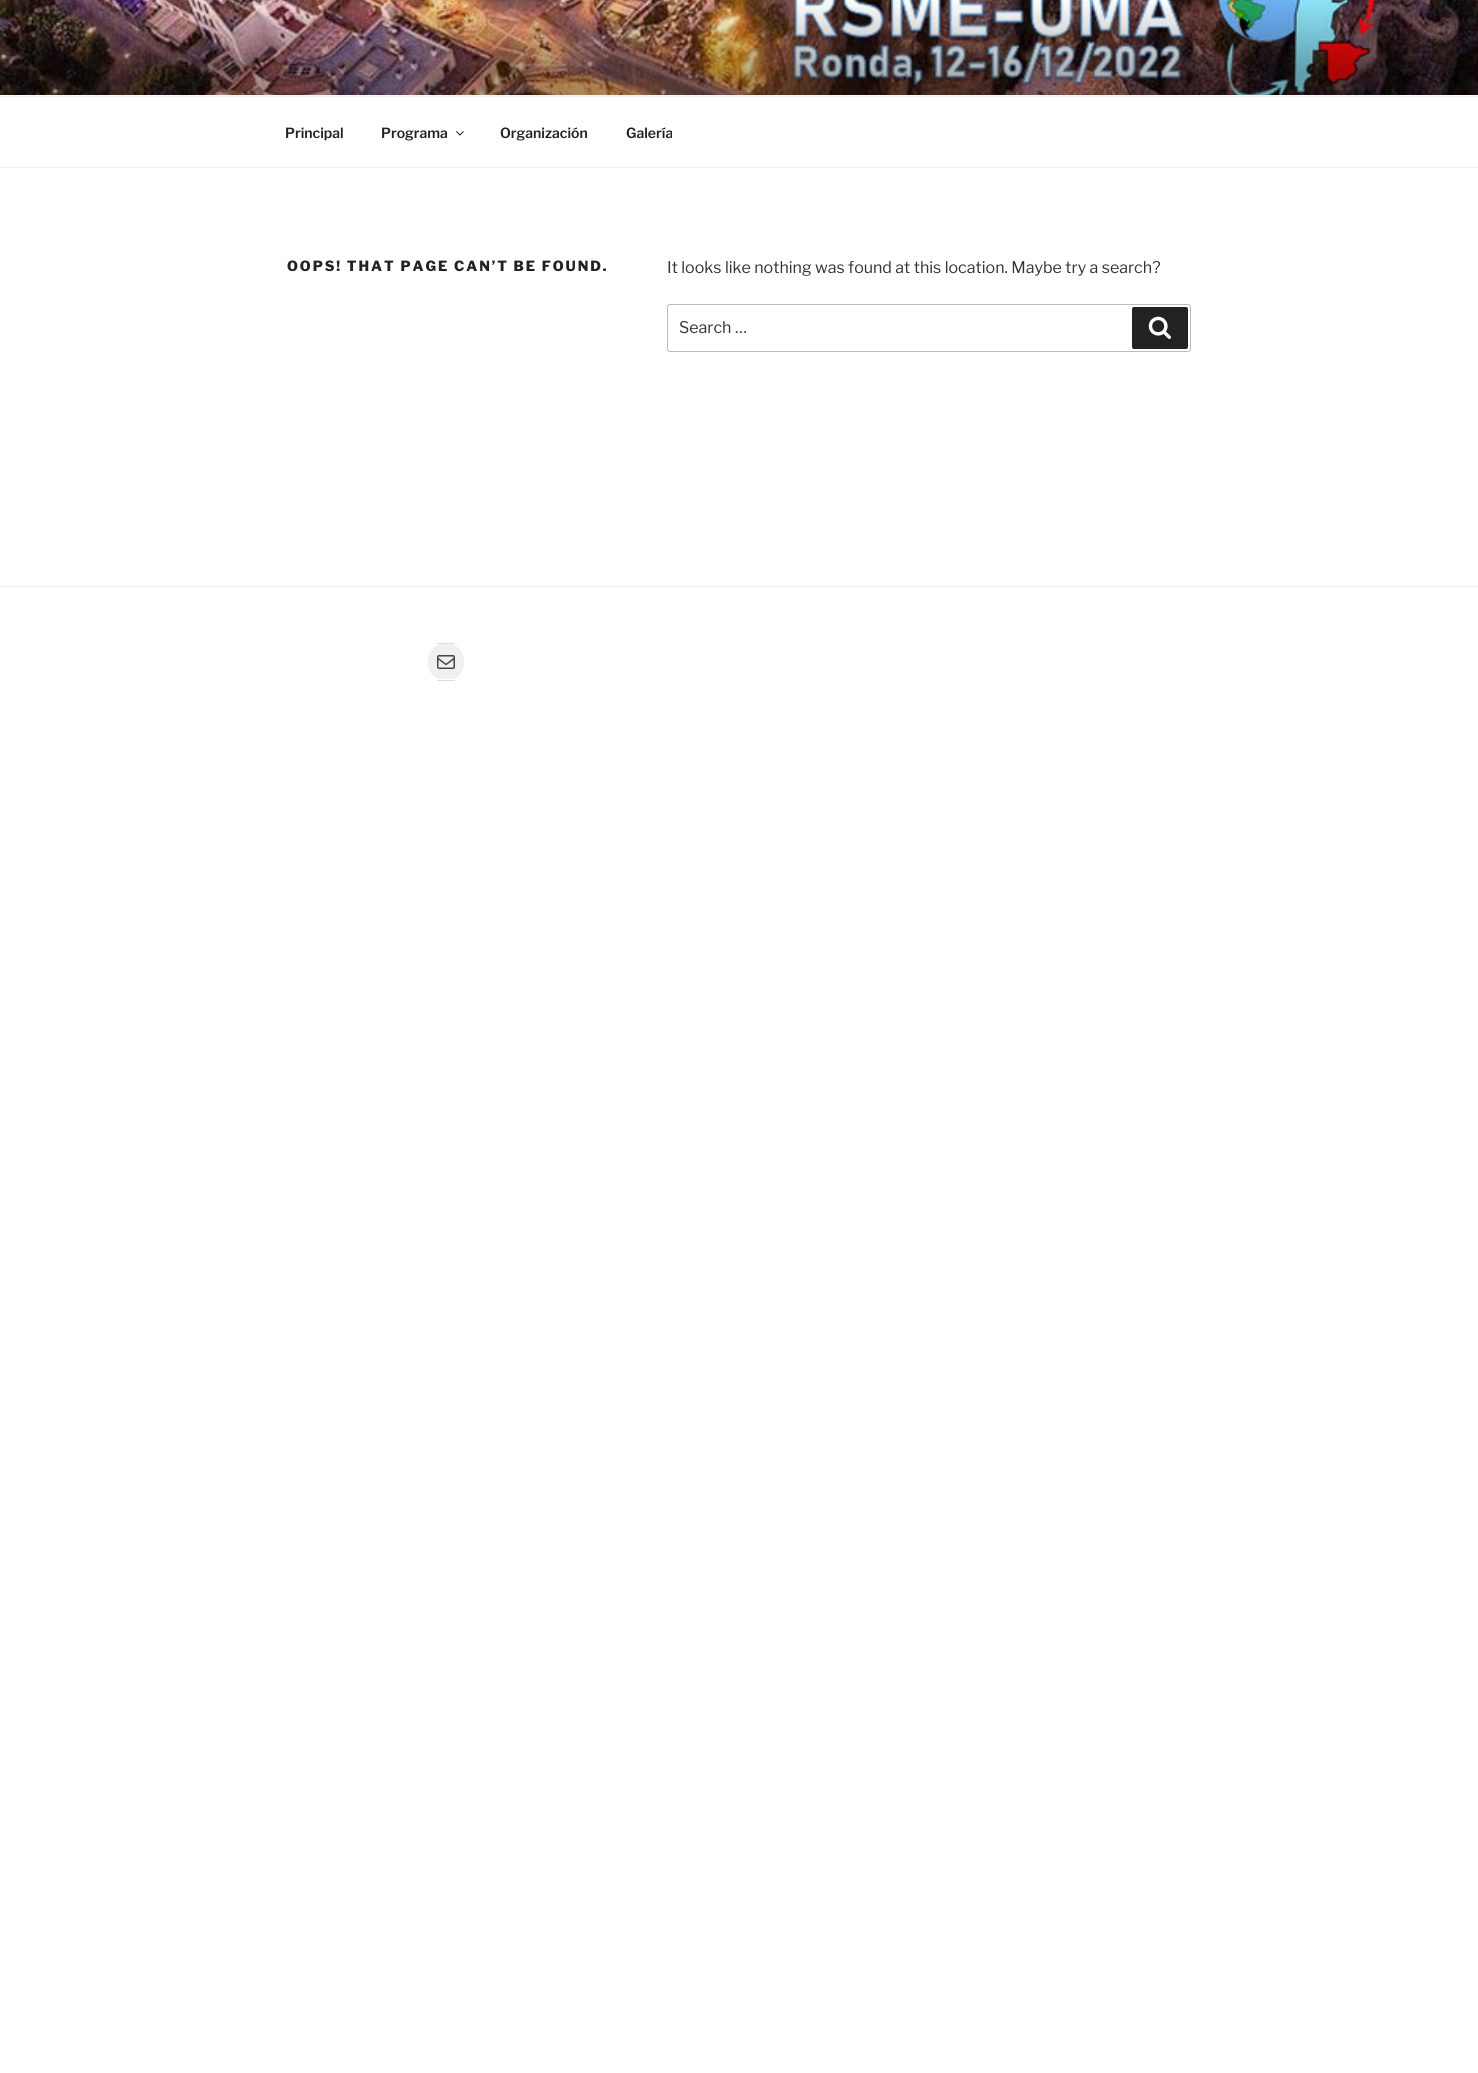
import math
import cairo


def use_color(cr, r, g, b):
  cr.set_source_rgb(r / 255, g / 255, b / 255)

def text(cr, x, y, s, family, size, color, bold=False, italic=False):
  cr.select_font_face(family, cairo.FONT_SLANT_ITALIC if italic else cairo.FONT_SLANT_NORMAL, cairo.FONT_WEIGHT_BOLD if bold else cairo.FONT_WEIGHT_NORMAL)
  cr.set_font_size(size)
  use_color(cr, *color)
  cr.move_to(x, y)
  cr.show_text(s)

def spaced_text(cr, x, y, s, letter, word):
  cr.move_to(x, y)
  for ch in s:
    cr.show_text(ch)
    cr.rel_move_to(letter + word * (ch == ' '), 0)

def box(cr, x, y, w, h, *color):
  use_color(cr, *color)
  cr.rectangle(x, y, w, h)
  cr.fill()

def round_rect(cr, x, y, w, h, r):
  cr.new_sub_path()
  for i, (u, v) in enumerate([(x + w - r, y + h - r), (x + r, y + h - r), (x + r, y + r), (x + w - r, y + r)]):
    cr.arc(u, v, r, i * math.pi / 2, (i + 1) * math.pi / 2)
  cr.close_path()

def picture(cr, path, x, y, w, h):
  cr.save()
  cr.set_source_surface(cairo.ImageSurface.create_from_png(path), x, y)
  cr.rectangle(x, y, w, h)
  cr.fill()
  cr.restore()

def draw(cr):
  use_color(cr, 255, 255, 255)
  cr.paint()
  box(cr, 0, 95, 1478, 1, 250, 250, 250)
  picture(cr, "img_01.png", 0, 0, 1478, 95)
  box(cr, 0, 96, 1478, 1, 238, 238, 238)
  box(cr, 0, 167, 1478, 1, 238, 238, 238)
  picture(cr, "img_02.png", 456, 131, 8, 5)
  round_rect(cr, 667.5, 304.5, 523, 47, 2.5)
  use_color(cr, 187, 187, 187)
  cr.set_line_width(1)
  cr.stroke()
  use_color(cr, 34, 34, 34)
  round_rect(cr, 1132, 307, 56, 42, 2)
  cr.fill()
  picture(cr, "img_03.png", 1148, 316, 23, 23)
  box(cr, 0, 586, 1478, 1, 238, 238, 238)
  use_color(cr, 240, 240, 240)
  round_rect(cr, 428, 643, 36, 38, 18)
  cr.fill()
  box(cr, 437, 643, 18, 1, 221, 221, 221)
  box(cr, 437, 680, 18, 1, 221, 221, 221)
  box(cr, 438, 679, 16, 1, 255, 255, 255)
  picture(cr, "img_04.png", 437, 655, 18, 14)
  text(cr, 285, 138, "Principal", "Libre Franklin SemiBold", 14, (34, 34, 34))
  text(cr, 381, 138, "Programa", "Libre Franklin SemiBold", 14, (34, 34, 34))
  text(cr, 500, 138, "Organización", "Libre Franklin SemiBold", 14, (34, 34, 34))
  text(cr, 626, 138, "Galería", "Libre Franklin SemiBold", 14, (34, 34, 34))
  cr.select_font_face("Libre Franklin ExtraBold")
  spaced_text(cr, 287, 271, "OOPS! THAT PAGE CAN’T BE FOUND.", 1.95, 0)
  text(cr, 667, 273, "It looks like nothing was found at this location. Maybe try a search?", "Libre Franklin", 16, (51, 51, 51))
  text(cr, 679, 333, "Search …", "Libre Franklin", 16, (51, 51, 51))


surface = cairo.ImageSurface(cairo.FORMAT_RGB24, 1478, 2073)
cr = cairo.Context(surface)
options = cairo.FontOptions()
options.set_hint_metrics(cairo.HINT_METRICS_OFF)
options.set_hint_style(cairo.HINT_STYLE_NONE)
cr.set_font_options(options)
cr.set_miter_limit(4)
draw(cr)
surface.write_to_png("out.png")
